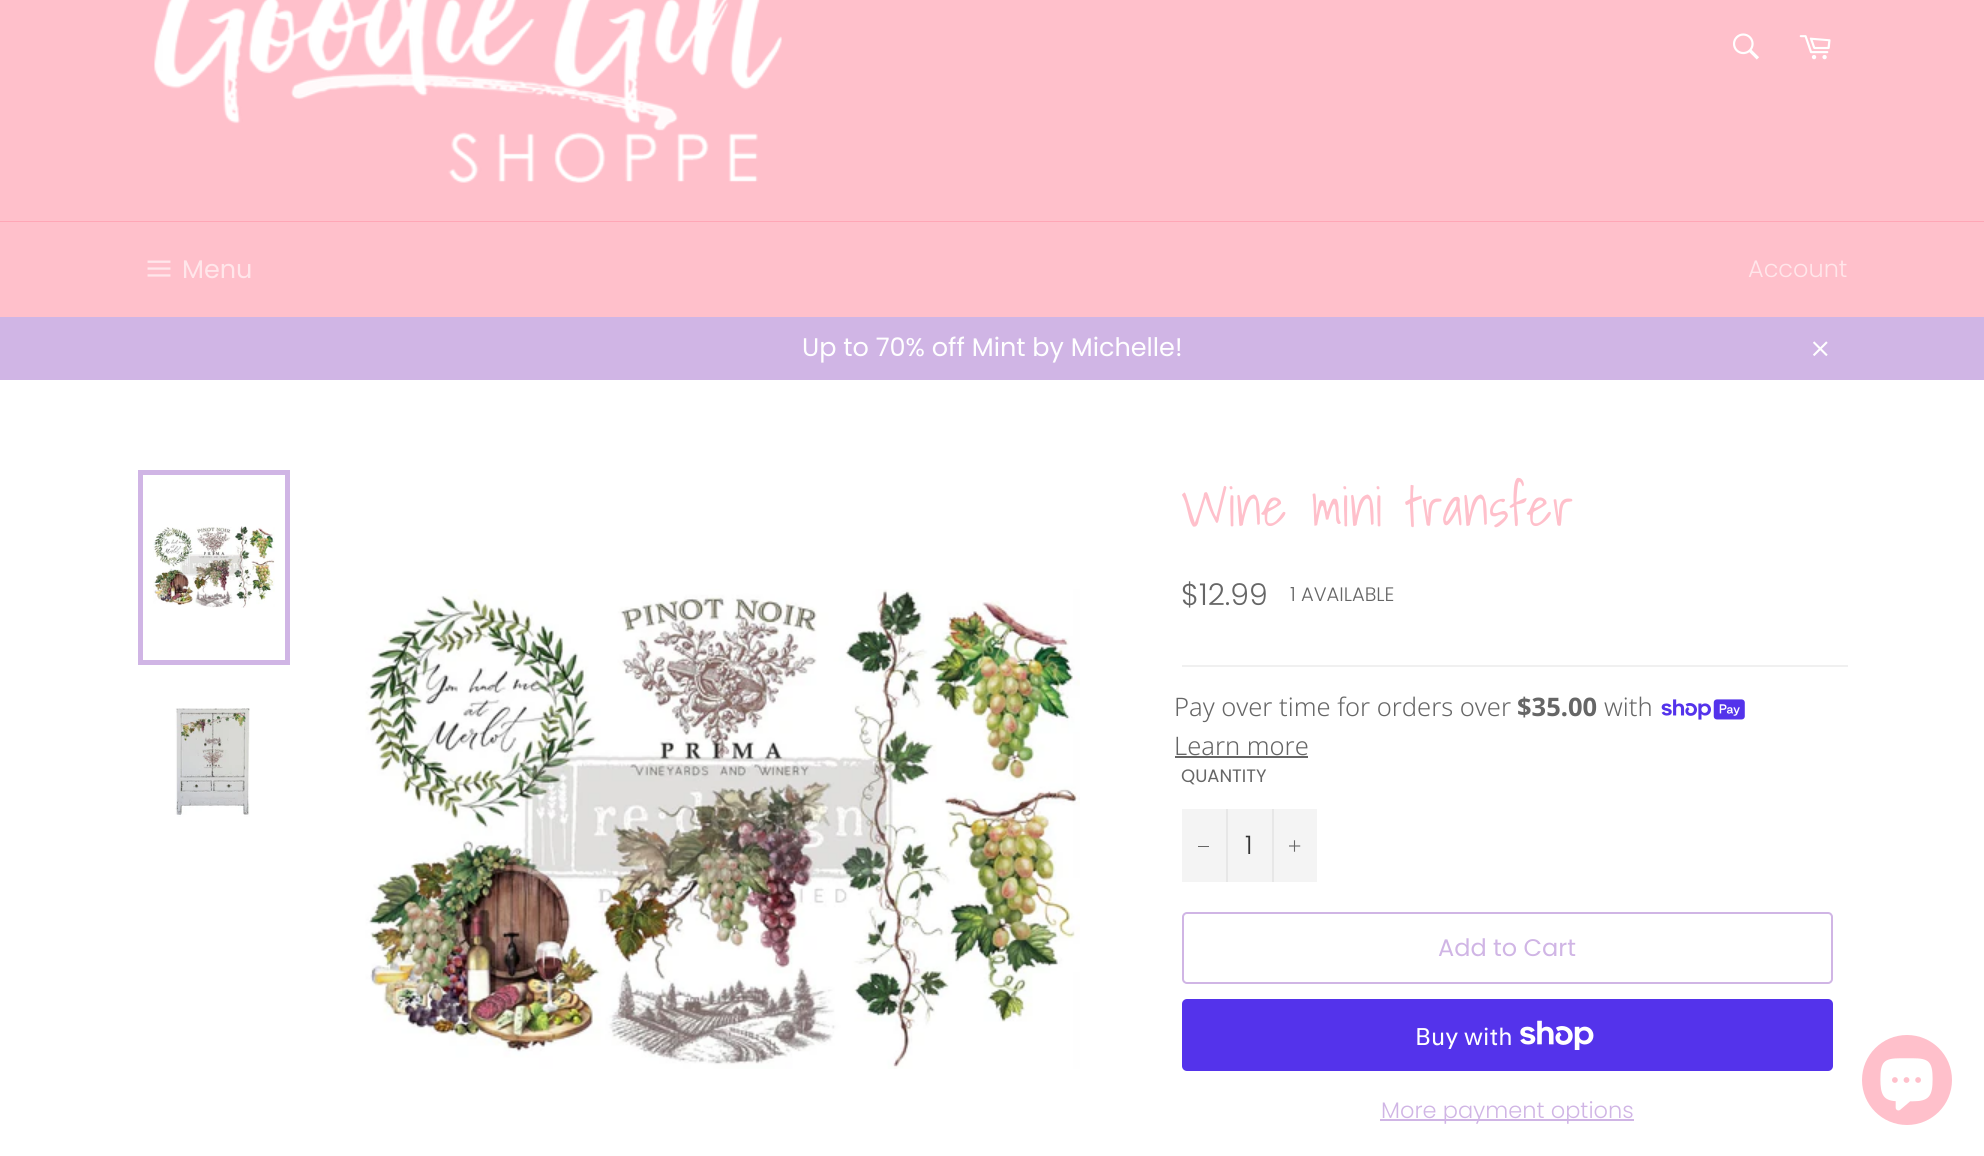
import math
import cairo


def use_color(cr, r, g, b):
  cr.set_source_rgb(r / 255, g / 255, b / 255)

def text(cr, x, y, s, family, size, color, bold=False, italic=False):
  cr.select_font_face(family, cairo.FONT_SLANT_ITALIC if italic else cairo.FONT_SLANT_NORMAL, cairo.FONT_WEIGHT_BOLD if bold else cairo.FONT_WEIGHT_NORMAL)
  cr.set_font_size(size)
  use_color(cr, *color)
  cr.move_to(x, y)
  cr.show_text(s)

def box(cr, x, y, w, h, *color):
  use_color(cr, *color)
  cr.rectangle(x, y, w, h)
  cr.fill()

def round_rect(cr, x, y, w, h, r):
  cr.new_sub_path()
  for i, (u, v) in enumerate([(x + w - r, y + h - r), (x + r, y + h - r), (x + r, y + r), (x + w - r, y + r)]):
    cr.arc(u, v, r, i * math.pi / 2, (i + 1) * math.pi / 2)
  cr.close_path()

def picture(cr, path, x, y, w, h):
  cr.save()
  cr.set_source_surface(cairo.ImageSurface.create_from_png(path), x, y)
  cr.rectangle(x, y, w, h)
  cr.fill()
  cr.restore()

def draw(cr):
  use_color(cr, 255, 192, 203)
  cr.paint()
  picture(cr, "img_01.png", 154, 0, 628, 183)
  picture(cr, "img_02.png", 1733, 33, 26, 27)
  picture(cr, "img_03.png", 1799, 35, 32, 25)
  box(cr, 0, 221, 1984, 1, 255, 166, 182)
  picture(cr, "img_04.png", 147, 260, 24, 17)
  box(cr, 0, 317, 1984, 63, 208, 181, 229)
  picture(cr, "img_05.png", 1813, 341, 15, 15)
  box(cr, 0, 380, 1984, 776, 255, 255, 255)
  picture(cr, "img_06.png", 153, 526, 122, 82)
  cr.rectangle(140.5, 472.5, 147, 190)
  use_color(cr, 208, 181, 229)
  cr.set_line_width(5)
  cr.stroke()
  picture(cr, "img_07.png", 175, 708, 75, 109)
  picture(cr, "img_08.png", 365, 589, 715, 480)
  box(cr, 1182, 665, 666, 2, 240, 240, 240)
  picture(cr, "img_09.png", 1661, 699, 84, 21)
  box(cr, 1175, 756, 133, 2, 102, 102, 102)
  box(cr, 1182, 809, 135, 73, 244, 244, 244)
  box(cr, 1226, 809, 2, 73, 231, 231, 231)
  box(cr, 1198, 846, 11, 1, 102, 102, 102)
  box(cr, 1272, 809, 2, 73, 231, 231, 231)
  picture(cr, "img_10.png", 1289, 840, 12, 12)
  round_rect(cr, 1183, 913, 649, 70, 4)
  use_color(cr, 208, 181, 229)
  cr.set_line_width(2)
  cr.stroke()
  use_color(cr, 84, 51, 235)
  round_rect(cr, 1182, 999, 651, 72, 5)
  cr.fill()
  picture(cr, "img_11.png", 1520, 1020, 74, 30)
  box(cr, 1380, 1119, 254, 2, 208, 181, 229)
  use_color(cr, 255, 192, 203)
  cr.arc(1907, 1080, 45, 0, 2 * math.pi)
  cr.fill()
  picture(cr, "img_12.png", 1880, 1058, 53, 53)
  text(cr, 182, 278, "Menu", "Poppins", 25.5, (255, 230, 234))
  text(cr, 1748, 277, "Account", "Poppins Light", 24, (255, 230, 234))
  text(cr, 802, 356, "Up to 70% off Mint by Michelle!", "Poppins", 25.5, (255, 255, 255))
  text(cr, 1181, 526, "Wine mini transfer", "Shadows Into Light", 54, (255, 192, 203))
  text(cr, 1181, 605, "$12.99", "Poppins Light", 30, (102, 102, 102))
  text(cr, 1290, 601, "1 AVAILABLE", "Poppins Light", 19.5, (102, 102, 102))
  text(cr, 1174, 716, "Pay over time for orders over", "Noto Sans Light", 25.5, (102, 102, 102))
  text(cr, 1517, 716, "$35.00", "Noto Sans", 25.5, (102, 102, 102), bold=True)
  text(cr, 1604, 716, "with", "Noto Sans Light", 25.5, (102, 102, 102))
  text(cr, 1174, 755, "Learn more", "Noto Sans Light", 25.5, (102, 102, 102))
  text(cr, 1181, 782, "QUANTITY", "Poppins", 18, (102, 102, 102))
  text(cr, 1245, 854, "1", "Poppins Light", 25.5, (51, 51, 51))
  text(cr, 1438, 956, "Add to Cart", "Poppins", 24, (208, 181, 229))
  text(cr, 1415, 1045, "Buy with", "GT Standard", 24, (255, 255, 255))
  text(cr, 1381, 1118, "More payment options", "Poppins Light", 22.5, (208, 181, 229))


surface = cairo.ImageSurface(cairo.FORMAT_RGB24, 1984, 1156)
cr = cairo.Context(surface)
options = cairo.FontOptions()
options.set_hint_metrics(cairo.HINT_METRICS_OFF)
options.set_hint_style(cairo.HINT_STYLE_NONE)
cr.set_font_options(options)
cr.set_miter_limit(4)
draw(cr)
surface.write_to_png("out.png")
